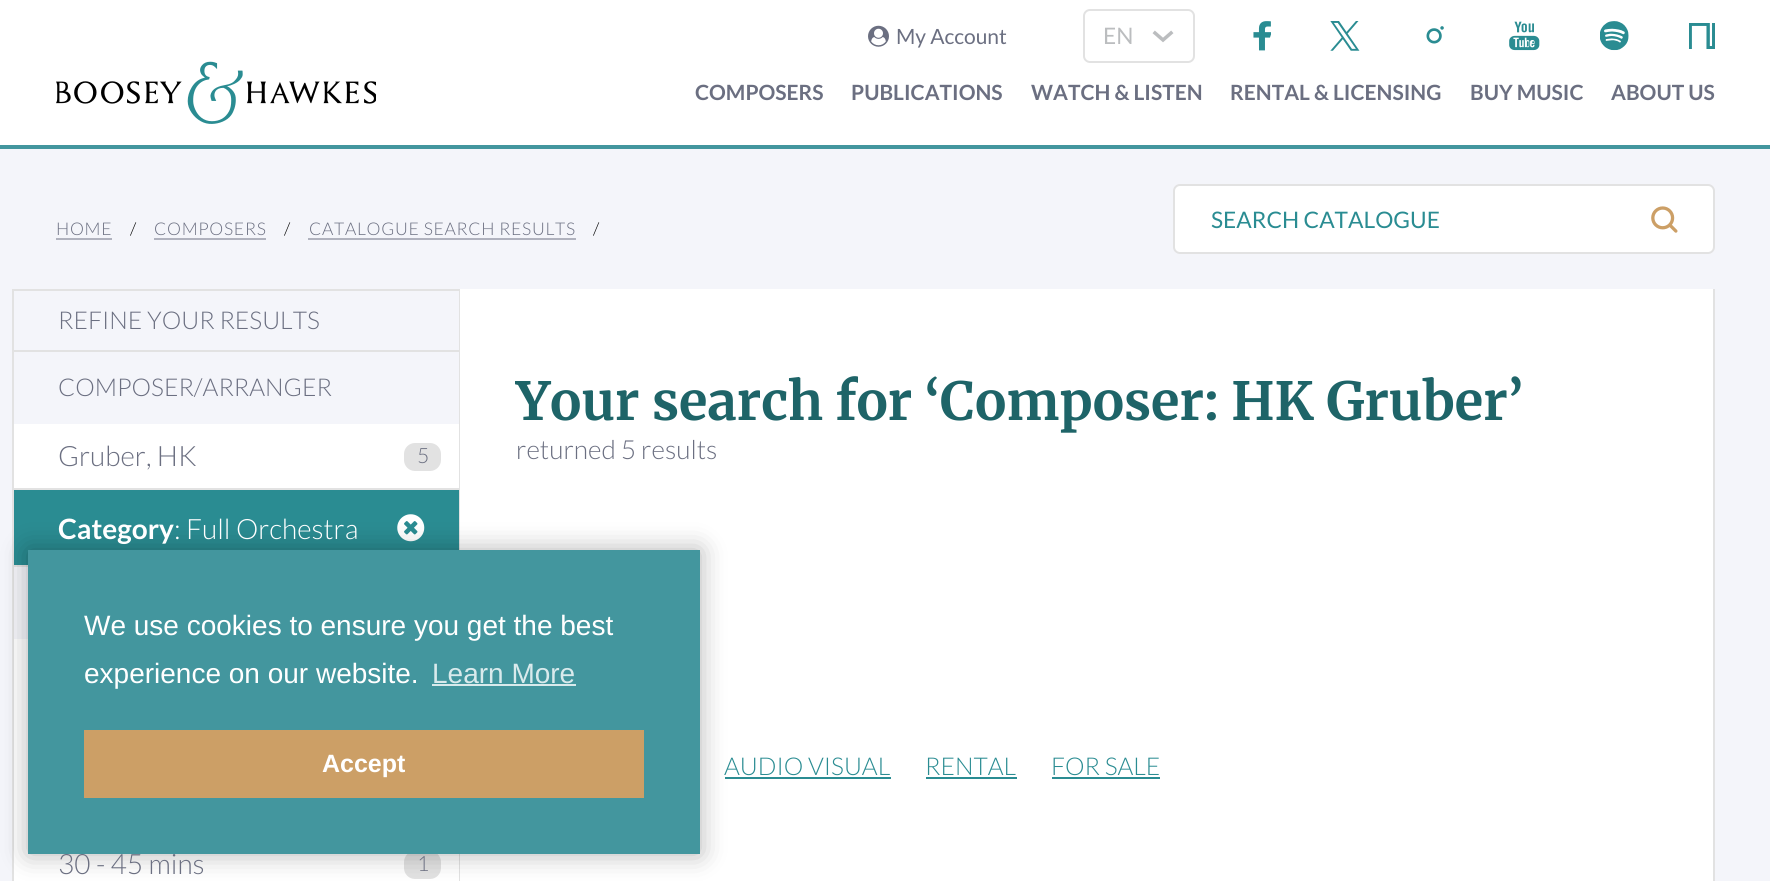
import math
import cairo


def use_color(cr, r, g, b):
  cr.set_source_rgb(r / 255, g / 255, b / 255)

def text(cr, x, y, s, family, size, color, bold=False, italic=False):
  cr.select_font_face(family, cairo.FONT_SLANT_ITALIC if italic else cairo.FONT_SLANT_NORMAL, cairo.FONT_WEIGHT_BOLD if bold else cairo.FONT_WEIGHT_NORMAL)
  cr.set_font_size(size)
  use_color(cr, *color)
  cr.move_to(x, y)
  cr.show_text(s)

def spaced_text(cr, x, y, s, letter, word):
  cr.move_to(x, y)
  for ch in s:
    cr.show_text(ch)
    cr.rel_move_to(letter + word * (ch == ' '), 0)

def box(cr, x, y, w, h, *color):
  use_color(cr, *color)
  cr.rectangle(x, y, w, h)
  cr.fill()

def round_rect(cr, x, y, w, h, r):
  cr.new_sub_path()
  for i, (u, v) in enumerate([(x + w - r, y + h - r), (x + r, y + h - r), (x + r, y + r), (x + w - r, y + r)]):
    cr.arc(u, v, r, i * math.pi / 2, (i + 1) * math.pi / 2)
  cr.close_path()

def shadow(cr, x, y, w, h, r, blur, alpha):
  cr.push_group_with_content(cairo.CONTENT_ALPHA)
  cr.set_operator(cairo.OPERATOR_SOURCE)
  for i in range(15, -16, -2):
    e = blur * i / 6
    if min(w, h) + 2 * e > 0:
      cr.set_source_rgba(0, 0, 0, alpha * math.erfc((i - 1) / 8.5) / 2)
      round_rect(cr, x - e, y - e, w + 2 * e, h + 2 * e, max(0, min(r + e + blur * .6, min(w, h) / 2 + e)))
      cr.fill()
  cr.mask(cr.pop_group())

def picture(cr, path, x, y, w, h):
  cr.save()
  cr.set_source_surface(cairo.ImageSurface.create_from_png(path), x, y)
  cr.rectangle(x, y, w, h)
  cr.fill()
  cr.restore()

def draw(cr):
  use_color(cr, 244, 245, 250)
  cr.paint()
  box(cr, 0, 0, 1770, 145, 255, 255, 255)
  picture(cr, "img_01.png", 868, 25, 21, 22)
  round_rect(cr, 1084, 10, 110, 52, 6)
  use_color(cr, 226, 226, 226)
  cr.stroke()
  cr.new_path()
  cr.move_to(1171, 33)
  cr.line_to(1163, 40)
  cr.line_to(1155, 33)
  use_color(cr, 187, 189, 191)
  cr.set_line_width(3.5)
  cr.set_line_cap(cairo.LINE_CAP_SQUARE)
  cr.stroke()
  picture(cr, "img_02.png", 1253, 21, 18, 30)
  picture(cr, "img_03.png", 1330, 21, 30, 30)
  picture(cr, "img_04.png", 1426, 26, 18, 18)
  picture(cr, "img_05.png", 1509, 21, 31, 30)
  picture(cr, "img_06.png", 1600, 21, 29, 30)
  picture(cr, "img_07.png", 1689, 23, 26, 26)
  picture(cr, "img_08.png", 56, 61, 320, 63)
  box(cr, 0, 145, 1770, 4, 67, 150, 158)
  box(cr, 56, 238, 56, 2, 176, 178, 190)
  box(cr, 154, 238, 112, 2, 176, 178, 190)
  box(cr, 308, 238, 268, 2, 176, 178, 190)
  use_color(cr, 255, 255, 255)
  round_rect(cr, 1174, 185, 540, 68, 6)
  cr.fill_preserve()
  use_color(cr, 226, 226, 226)
  cr.set_line_width(2)
  cr.set_line_cap(cairo.LINE_CAP_BUTT)
  cr.stroke()
  picture(cr, "img_09.png", 1651, 206, 27, 27)
  box(cr, 12, 289, 447, 2, 226, 226, 226)
  box(cr, 12, 289, 2, 592, 226, 226, 226)
  box(cr, 14, 350, 445, 2, 226, 226, 226)
  box(cr, 14, 424, 445, 64, 255, 255, 255)
  use_color(cr, 226, 226, 226)
  round_rect(cr, 404, 443, 37, 28, 11)
  cr.fill()
  box(cr, 14, 488, 445, 2, 226, 226, 226)
  box(cr, 14, 490, 445, 75, 42, 140, 146)
  picture(cr, "img_10.png", 397, 514, 28, 28)
  box(cr, 14, 565, 14, 2, 226, 226, 226)
  box(cr, 14, 639, 445, 242, 255, 255, 255)
  use_color(cr, 226, 226, 226)
  round_rect(cr, 404, 851, 37, 28, 11)
  cr.fill()
  box(cr, 1713, 289, 2, 592, 226, 226, 226)
  box(cr, 459, 289, 1, 592, 226, 226, 226)
  box(cr, 460, 289, 1253, 592, 255, 255, 255)
  box(cr, 725, 777, 166, 2, 42, 140, 146)
  box(cr, 926, 777, 91, 2, 42, 140, 146)
  box(cr, 1052, 777, 108, 2, 42, 140, 146)
  use_color(cr, 0, 0, 0)
  shadow(cr, 28, 550, 672, 304, 0, 13, 0.3)
  text(cr, 896, 44, "My Account", "Lato", 21, (107, 111, 129))
  text(cr, 1103, 44, "EN", "Lato", 22.75, (187, 189, 191))
  text(cr, 695, 100, "COMPOSERS", "Lato", 21, (107, 111, 129), bold=True)
  text(cr, 851, 100, "PUBLICATIONS", "Lato", 21, (107, 111, 129), bold=True)
  text(cr, 1031, 100, "WATCH & LISTEN", "Lato", 21, (107, 111, 129), bold=True)
  text(cr, 1230, 100, "RENTAL & LICENSING", "Lato", 21, (107, 111, 129), bold=True)
  text(cr, 1470, 100, "BUY MUSIC", "Lato", 21, (107, 111, 129), bold=True)
  text(cr, 1611, 100, "ABOUT US", "Lato", 21, (107, 111, 129), bold=True)
  cr.select_font_face("Lato Light")
  cr.set_font_size(17.5)
  spaced_text(cr, 56, 235, "HOME", 0.7, 0)
  use_color(cr, 0, 0, 0)
  spaced_text(cr, 130, 235, "/", 0.7, 0)
  use_color(cr, 107, 111, 129)
  spaced_text(cr, 154, 235, "COMPOSERS", 0.7, 0)
  use_color(cr, 0, 0, 0)
  spaced_text(cr, 284, 235, "/", 0.7, 0)
  use_color(cr, 107, 111, 129)
  spaced_text(cr, 309, 235, "CATALOGUE SEARCH RESULTS", 0.7, 0)
  use_color(cr, 0, 0, 0)
  spaced_text(cr, 593, 235, "/", 0.7, 0)
  text(cr, 1211, 228, "SEARCH CATALOGUE", "Lato", 22.75, (42, 140, 146))
  text(cr, 58, 329, "REFINE YOUR RESULTS", "Lato Light", 24.5, (107, 111, 129))
  text(cr, 58, 396, "COMPOSER/ARRANGER", "Lato Light", 24.5, (107, 111, 129))
  text(cr, 58, 466, "Gruber, HK", "Lato Light", 28, (107, 111, 129))
  text(cr, 417, 463, "5", "Lato Light", 21, (107, 111, 129))
  text(cr, 58, 539, "Category", "Lato", 28, (255, 255, 255), bold=True)
  text(cr, 174, 539, ": Full Orchestra", "Lato Light", 28, (255, 255, 255))
  text(cr, 58, 874, "30 - 45 mins", "Lato Light", 28, (107, 111, 129))
  text(cr, 417, 871, "1", "Lato Light", 21, (107, 111, 129))
  text(cr, 516, 420, "Your search for ‘Composer: HK Gruber’", "Merriweather", 52.5, (30, 100, 104), bold=True)
  text(cr, 516, 459, "returned 5 results", "Lato Light", 26.25, (107, 111, 129))
  text(cr, 724, 775, "AUDIO VISUAL", "Lato Light", 24.5, (42, 140, 146))
  text(cr, 925, 775, "RENTAL", "Lato Light", 24.5, (42, 140, 146))
  text(cr, 1051, 775, "FOR SALE", "Lato Light", 24.5, (42, 140, 146))
  box(cr, 28, 550, 672, 304, 67, 150, 158)
  text(cr, 84, 635, "We use cookies to ensure you get the best", "Liberation Sans", 28, (255, 255, 255))
  text(cr, 84, 683, "experience on our website.", "Liberation Sans", 28, (255, 255, 255))
  text(cr, 432, 683, "Learn More", "Liberation Sans", 28, (217, 234, 236))
  box(cr, 432, 684, 144, 2, 217, 234, 236)
  box(cr, 84, 730, 560, 68, 204, 159, 102)
  text(cr, 322, 772, "Accept", "Liberation Sans", 25, (255, 255, 255), bold=True)


surface = cairo.ImageSurface(cairo.FORMAT_RGB24, 1770, 881)
cr = cairo.Context(surface)
options = cairo.FontOptions()
options.set_hint_metrics(cairo.HINT_METRICS_OFF)
options.set_hint_style(cairo.HINT_STYLE_NONE)
cr.set_font_options(options)
cr.set_miter_limit(4)
draw(cr)
surface.write_to_png("out.png")
